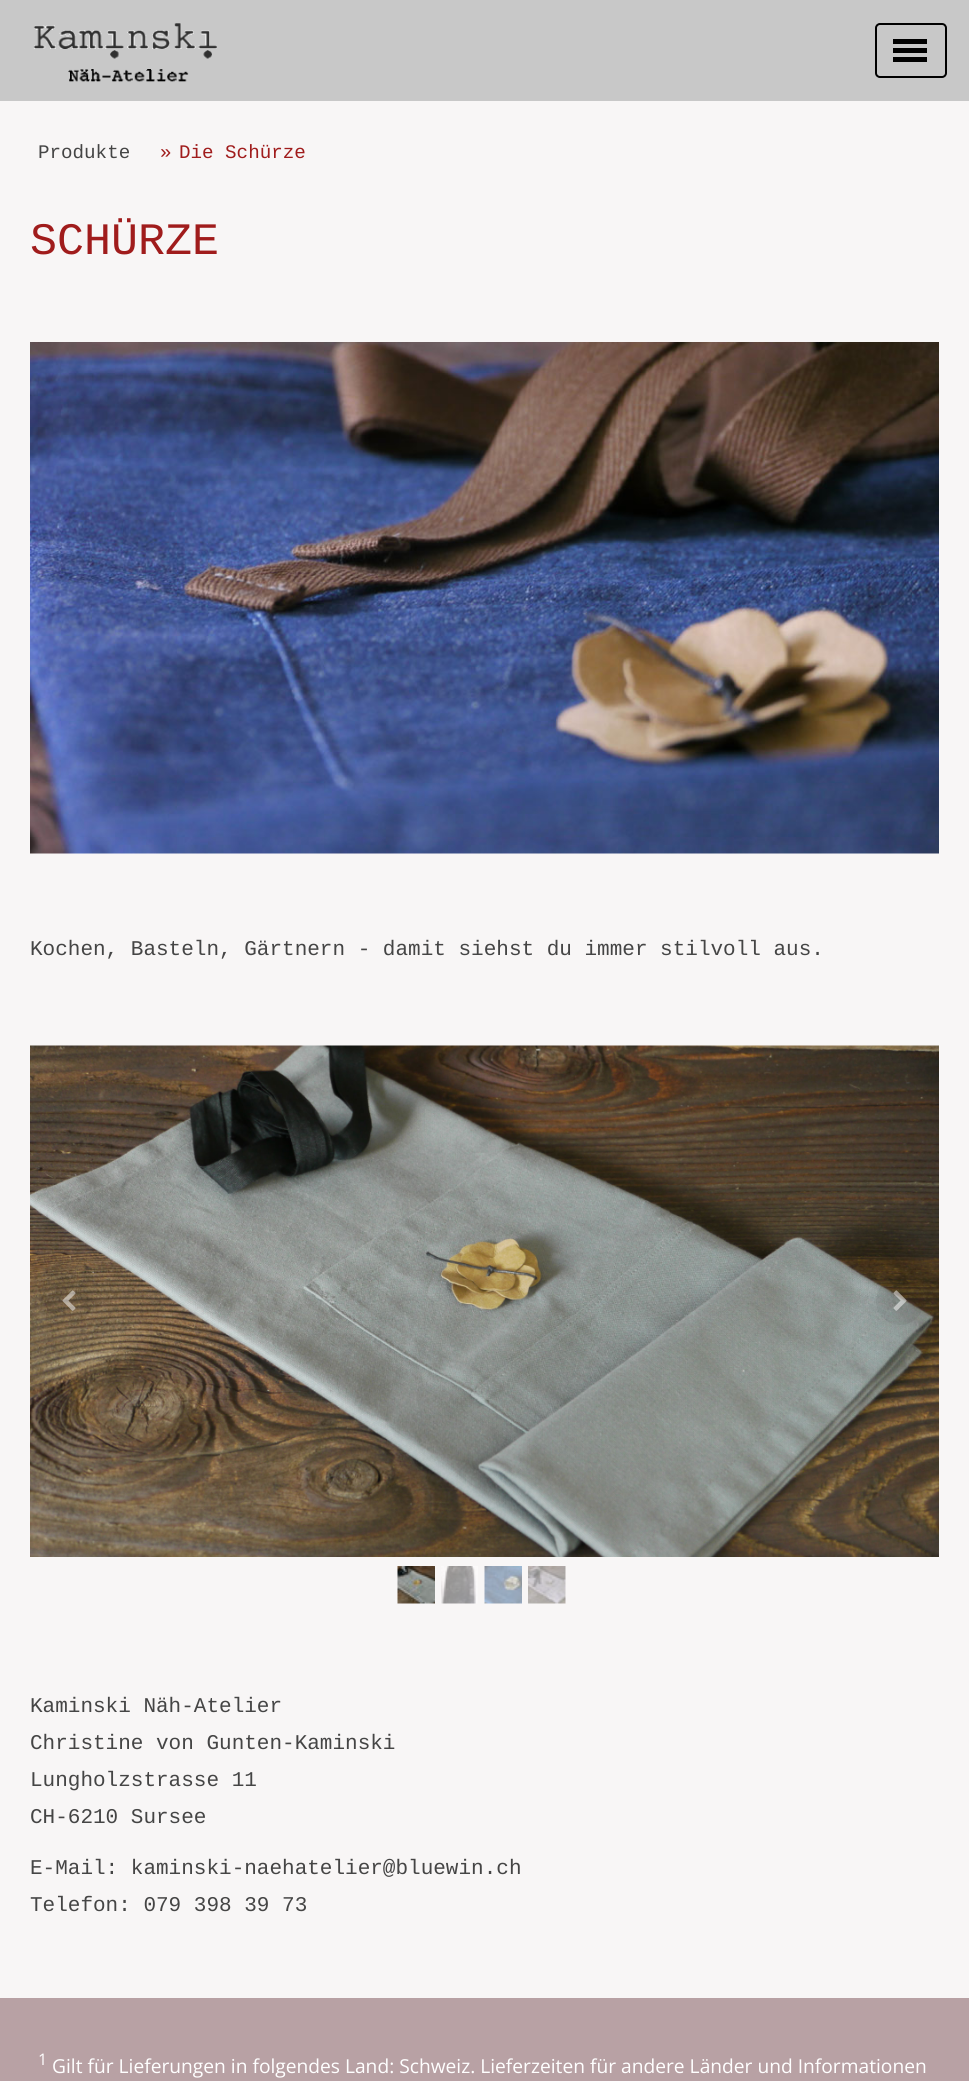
import math
import cairo


def use_color(cr, r, g, b):
  cr.set_source_rgb(r / 255, g / 255, b / 255)

def text(cr, x, y, s, family, size, color, bold=False, italic=False):
  cr.select_font_face(family, cairo.FONT_SLANT_ITALIC if italic else cairo.FONT_SLANT_NORMAL, cairo.FONT_WEIGHT_BOLD if bold else cairo.FONT_WEIGHT_NORMAL)
  cr.set_font_size(size)
  use_color(cr, *color)
  cr.move_to(x, y)
  cr.show_text(s)

def box(cr, x, y, w, h, *color):
  use_color(cr, *color)
  cr.rectangle(x, y, w, h)
  cr.fill()

def round_rect(cr, x, y, w, h, r):
  cr.new_sub_path()
  for i, (u, v) in enumerate([(x + w - r, y + h - r), (x + r, y + h - r), (x + r, y + r), (x + w - r, y + r)]):
    cr.arc(u, v, r, i * math.pi / 2, (i + 1) * math.pi / 2)
  cr.close_path()

def picture(cr, path, x, y, w, h):
  cr.save()
  cr.set_source_surface(cairo.ImageSurface.create_from_png(path), x, y)
  cr.rectangle(x, y, w, h)
  cr.fill()
  cr.restore()

def draw(cr):
  use_color(cr, 184, 161, 164)
  cr.paint()
  box(cr, 0, 0, 969, 101, 200, 200, 200)
  picture(cr, "img_01.png", 33, 23, 184, 59)
  round_rect(cr, 876, 24, 70, 53, 4)
  use_color(cr, 0, 0, 0)
  cr.stroke()
  box(cr, 893, 48, 34, 5, 0, 0, 0)
  box(cr, 893, 39, 34, 5, 0, 0, 0)
  box(cr, 893, 57, 34, 5, 0, 0, 0)
  box(cr, 0, 101, 969, 1897, 248, 246, 246)
  picture(cr, "img_02.png", 30, 342, 909, 512)
  picture(cr, "img_03.png", 30, 1045, 909, 512)
  cr.set_source_rgba(0, 0, 0, 0.07)
  cr.arc(69, 1301, 24, 0, 2 * math.pi)
  cr.fill()
  picture(cr, "img_04.png", 62, 1290, 14, 21)
  cr.arc(900, 1301, 24, 0, 2 * math.pi)
  cr.fill()
  picture(cr, "img_05.png", 893, 1290, 14, 21)
  picture(cr, "img_06.png", 397, 1566, 38, 38)
  picture(cr, "img_07.png", 441, 1566, 37, 38)
  picture(cr, "img_08.png", 484, 1566, 38, 38)
  picture(cr, "img_09.png", 528, 1566, 38, 38)
  text(cr, 38, 158, "Produkte", "Liberation Mono", 19.2, (69, 69, 69))
  text(cr, 160, 158, "»", "Liberation Mono", 19.2, (160, 28, 28))
  text(cr, 179, 158, "Die Schürze", "Liberation Mono", 19.2, (160, 28, 28))
  text(cr, 30, 254, "SCHÜRZE", "Liberation Mono", 45, (160, 28, 28))
  text(cr, 30, 955, "Kochen, Basteln, Gärtnern - damit siehst du immer stilvoll aus.", "Liberation Mono", 21, (69, 69, 69))
  text(cr, 30, 1712, "Kaminski Näh-Atelier", "Liberation Mono", 21, (69, 69, 69))
  text(cr, 30, 1749, "Christine von Gunten-Kaminski", "Liberation Mono", 21, (69, 69, 69))
  text(cr, 30, 1786, "Lungholzstrasse 11", "Liberation Mono", 21, (69, 69, 69))
  text(cr, 30, 1823, "CH-6210 Sursee", "Liberation Mono", 21, (69, 69, 69))
  text(cr, 30, 1874, "E-Mail: kaminski-naehatelier@bluewin.ch", "Liberation Mono", 21, (69, 69, 69))
  text(cr, 30, 1911, "Telefon: 079 398 39 73", "Liberation Mono", 21, (69, 69, 69))
  text(cr, 38, 2065, "1", "Open Sans", 16, (255, 255, 255))
  text(cr, 52, 2073, "Gilt für Lieferungen in folgendes Land: Schweiz. Lieferzeiten für andere Länder und Informationen", "Open Sans", 19.2, (255, 255, 255))


surface = cairo.ImageSurface(cairo.FORMAT_RGB24, 969, 2081)
cr = cairo.Context(surface)
options = cairo.FontOptions()
options.set_hint_metrics(cairo.HINT_METRICS_OFF)
options.set_hint_style(cairo.HINT_STYLE_NONE)
cr.set_font_options(options)
cr.set_miter_limit(4)
draw(cr)
surface.write_to_png("out.png")
